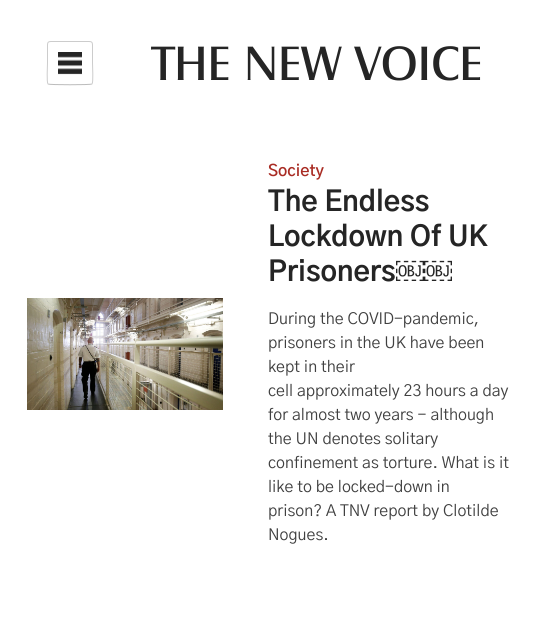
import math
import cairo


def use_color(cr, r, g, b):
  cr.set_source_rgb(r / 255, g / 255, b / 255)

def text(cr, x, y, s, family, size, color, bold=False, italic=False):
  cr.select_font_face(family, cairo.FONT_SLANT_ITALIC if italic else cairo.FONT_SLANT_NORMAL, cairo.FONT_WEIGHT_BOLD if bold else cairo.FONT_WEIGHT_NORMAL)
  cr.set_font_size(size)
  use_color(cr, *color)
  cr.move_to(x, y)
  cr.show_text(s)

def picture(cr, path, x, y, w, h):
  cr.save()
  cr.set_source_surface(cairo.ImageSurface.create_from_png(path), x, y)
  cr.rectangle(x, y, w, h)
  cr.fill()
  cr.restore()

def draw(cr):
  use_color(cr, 255, 255, 255)
  cr.paint()
  cr.new_path()
  cr.move_to(92, 84)
  cr.curve_to(90.5, 85, 49.5, 85, 48, 84)
  use_color(cr, 187, 187, 187)
  cr.set_line_width(1)
  cr.stroke()
  cr.new_path()
  cr.move_to(48, 84)
  cr.curve_to(46.5, 82, 47.5, 66, 47.5, 63)
  cr.line_to(47.5, 50.5)
  cr.curve_to(47.5, 40.5, 46.5, 41.5, 56.5, 41.5)
  cr.line_to(83.5, 41.5)
  cr.curve_to(93.5, 41.5, 92.5, 40.5, 92.5, 50.5)
  cr.line_to(92.5, 63)
  cr.curve_to(92.5, 66, 93.5, 82, 92, 84)
  use_color(cr, 204, 204, 204)
  cr.stroke()
  picture(cr, "img_01.png", 58, 52, 24, 23)
  picture(cr, "img_02.png", 27, 298, 196, 112)
  text(cr, 152, 80, "THE NEW VOICE", "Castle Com", 50, (37, 37, 37))
  text(cr, 268, 176, "Society", "Gothic A1 SemiBold", 16, (169, 44, 36))
  text(cr, 268, 211, "The Endless", "Gothic A1", 28, (37, 37, 37), bold=True)
  text(cr, 268, 246, "Lockdown Of UK", "Gothic A1", 28, (37, 37, 37), bold=True)
  text(cr, 268, 281, "Prisoners", "Gothic A1", 28, (37, 37, 37), bold=True)
  text(cr, 396, 281, "￼￼", "Liberation Sans", 28, (37, 37, 37), bold=True)
  text(cr, 268, 324, "During the COVID-pandemic,", "Gothic A1", 16, (64, 64, 64))
  text(cr, 268, 348, "prisoners in the UK have been", "Gothic A1", 16, (64, 64, 64))
  text(cr, 268, 372, "kept in their", "Gothic A1", 16, (64, 64, 64))
  text(cr, 268, 396, "cell approximately 23 hours a day", "Gothic A1", 16, (64, 64, 64))
  text(cr, 268, 420, "for almost two years - although", "Gothic A1", 16, (64, 64, 64))
  text(cr, 268, 444, "the UN denotes solitary", "Gothic A1", 16, (64, 64, 64))
  text(cr, 268, 468, "confinement as torture. What is it", "Gothic A1", 16, (64, 64, 64))
  text(cr, 268, 492, "like to be locked-down in", "Gothic A1", 16, (64, 64, 64))
  text(cr, 268, 516, "prison? A TNV report by Clotilde", "Gothic A1", 16, (64, 64, 64))
  text(cr, 268, 540, "Nogues.", "Gothic A1", 16, (64, 64, 64))


surface = cairo.ImageSurface(cairo.FORMAT_RGB24, 536, 621)
cr = cairo.Context(surface)
options = cairo.FontOptions()
options.set_hint_metrics(cairo.HINT_METRICS_OFF)
options.set_hint_style(cairo.HINT_STYLE_NONE)
cr.set_font_options(options)
cr.set_miter_limit(4)
draw(cr)
surface.write_to_png("out.png")
